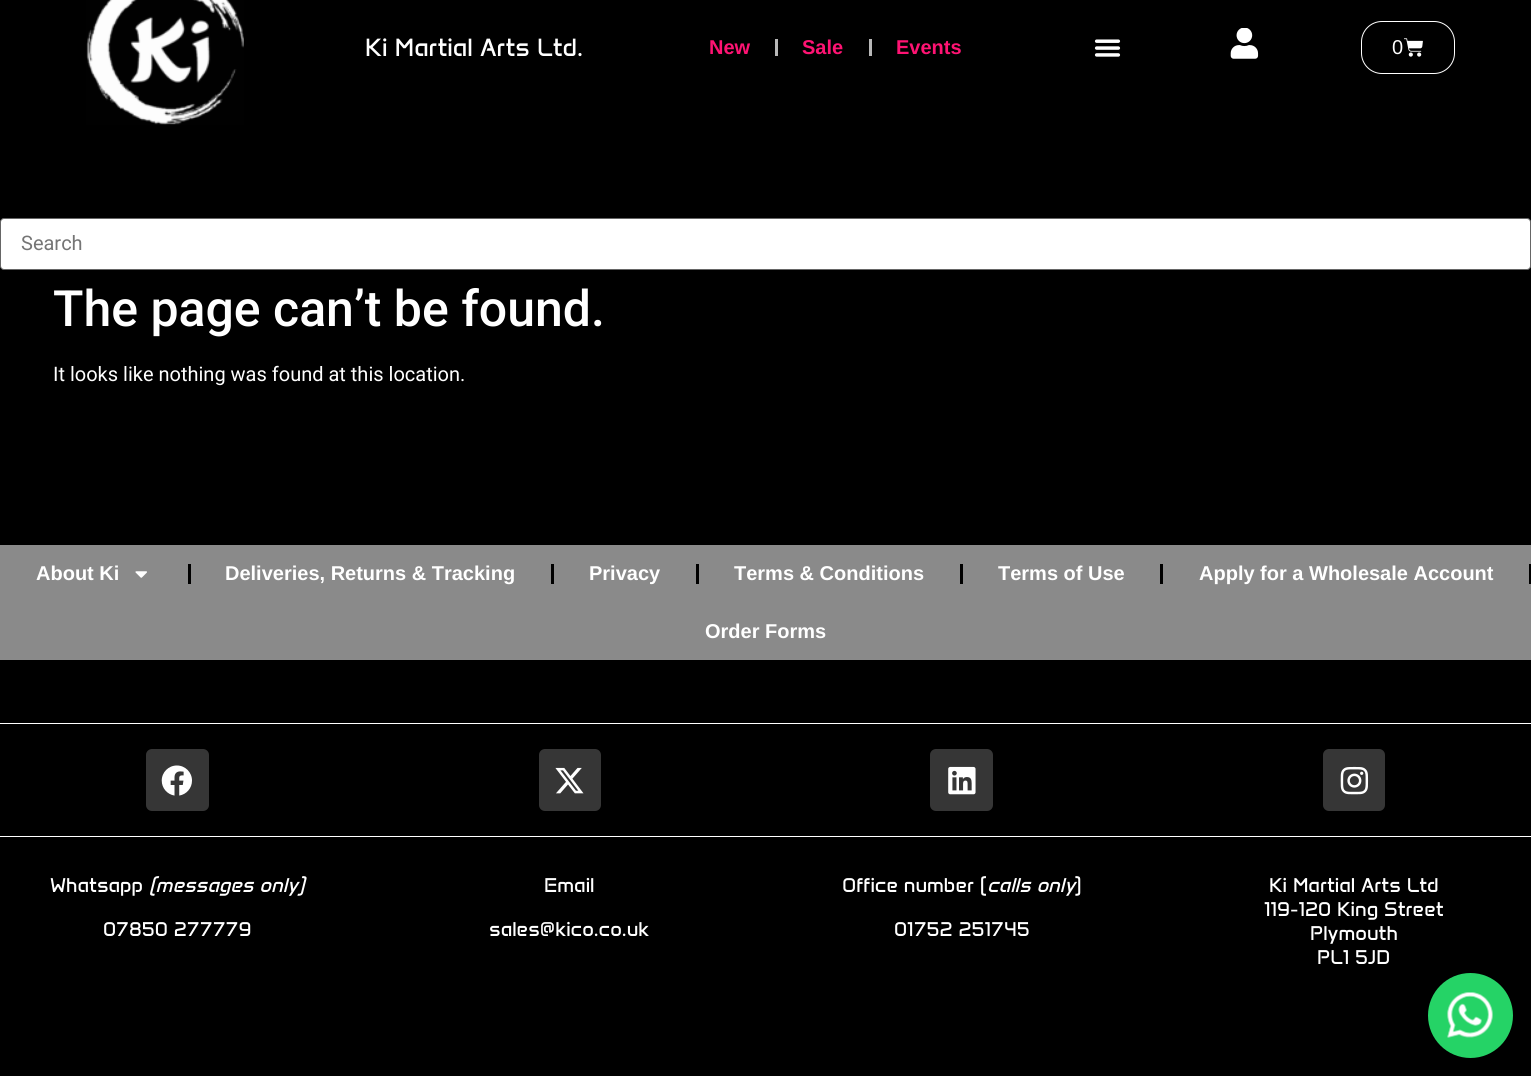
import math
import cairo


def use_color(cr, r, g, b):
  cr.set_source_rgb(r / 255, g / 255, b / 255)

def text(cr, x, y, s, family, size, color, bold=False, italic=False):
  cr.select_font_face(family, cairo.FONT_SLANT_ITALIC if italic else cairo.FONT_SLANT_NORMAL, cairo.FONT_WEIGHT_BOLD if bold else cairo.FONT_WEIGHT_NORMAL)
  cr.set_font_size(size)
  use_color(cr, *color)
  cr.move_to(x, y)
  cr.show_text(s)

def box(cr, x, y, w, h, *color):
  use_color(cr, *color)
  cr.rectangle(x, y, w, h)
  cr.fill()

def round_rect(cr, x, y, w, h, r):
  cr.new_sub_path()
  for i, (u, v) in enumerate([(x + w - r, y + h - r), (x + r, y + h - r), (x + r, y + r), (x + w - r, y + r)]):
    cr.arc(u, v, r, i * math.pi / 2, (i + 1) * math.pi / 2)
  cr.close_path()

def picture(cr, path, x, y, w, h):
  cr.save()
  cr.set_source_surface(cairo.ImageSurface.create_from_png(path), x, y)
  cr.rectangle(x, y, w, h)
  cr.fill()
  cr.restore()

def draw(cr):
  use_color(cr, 0, 0, 0)
  cr.paint()
  picture(cr, "img_01.png", 86, 0, 158, 125)
  box(cr, 775, 39, 3, 17, 184, 184, 184)
  box(cr, 869, 39, 3, 17, 184, 184, 184)
  picture(cr, "img_02.png", 1094, 39, 27, 18)
  picture(cr, "img_03.png", 1230, 28, 29, 31)
  round_rect(cr, 1361.5, 21.5, 93, 52, 20.5)
  use_color(cr, 255, 255, 255)
  cr.set_line_width(1)
  cr.stroke()
  picture(cr, "img_04.png", 1404, 38, 19, 19)
  round_rect(cr, 0.5, 218.5, 1530, 51, 3.5)
  cr.fill_preserve()
  use_color(cr, 102, 102, 102)
  cr.stroke()
  box(cr, 0, 545, 1531, 115, 138, 138, 138)
  picture(cr, "img_05.png", 135, 571, 12, 7)
  box(cr, 188, 564, 3, 20, 0, 0, 0)
  box(cr, 551, 564, 3, 20, 0, 0, 0)
  box(cr, 696, 564, 3, 20, 0, 0, 0)
  box(cr, 960, 564, 3, 20, 0, 0, 0)
  box(cr, 1160, 564, 3, 20, 0, 0, 0)
  box(cr, 1529, 564, 2, 20, 0, 0, 0)
  box(cr, 0, 723, 1531, 1, 255, 255, 255)
  use_color(cr, 54, 54, 54)
  round_rect(cr, 146, 749, 63, 62, 6)
  cr.fill()
  picture(cr, "img_06.png", 161, 765, 31, 31)
  round_rect(cr, 539, 749, 62, 62, 6)
  cr.fill()
  picture(cr, "img_07.png", 555, 767, 29, 27)
  round_rect(cr, 930, 749, 63, 62, 6)
  cr.fill()
  picture(cr, "img_08.png", 948, 766, 28, 29)
  round_rect(cr, 1323, 749, 62, 62, 6)
  cr.fill()
  picture(cr, "img_09.png", 1340, 766, 29, 29)
  box(cr, 0, 836, 1531, 1, 255, 255, 255)
  use_color(cr, 37, 211, 102)
  cr.arc(1470.5, 1015.5, 42.5, 0, 2 * math.pi)
  cr.fill()
  picture(cr, "img_10.png", 1447, 992, 46, 46)
  text(cr, 365, 56, "Ki Martial Arts Ltd.", "Anta", 25, (255, 255, 255))
  text(cr, 709, 54, "New", "Liberation Sans", 20, (255, 19, 115), bold=True)
  text(cr, 802, 54, "Sale", "Liberation Sans", 20, (255, 19, 115), bold=True)
  text(cr, 896, 54, "Events", "Liberation Sans", 20, (255, 19, 115), bold=True)
  text(cr, 1392, 54, "0", "Liberation Sans", 20, (255, 255, 255))
  text(cr, 21, 250, "Search", "Roboto", 20, (117, 117, 117))
  text(cr, 53, 326, "The page can’t be found.", "Roboto Medium", 50, (255, 255, 255))
  text(cr, 53, 381, "It looks like nothing was found at this location.", "Roboto", 20, (255, 255, 255))
  text(cr, 36, 580, "About Ki", "Liberation Sans", 20, (255, 255, 255), bold=True)
  text(cr, 225, 580, "Deliveries, Returns & Tracking", "Liberation Sans", 20, (255, 255, 255), bold=True)
  text(cr, 589, 580, "Privacy", "Liberation Sans", 20, (255, 255, 255), bold=True)
  text(cr, 734, 580, "Terms & Conditions", "Liberation Sans", 20, (255, 255, 255), bold=True)
  text(cr, 998, 580, "Terms of Use", "Liberation Sans", 20, (255, 255, 255), bold=True)
  text(cr, 1199, 580, "Apply for a Wholesale Account", "Liberation Sans", 20, (255, 255, 255), bold=True)
  text(cr, 705, 638, "Order Forms", "Liberation Sans", 20, (255, 255, 255), bold=True)
  text(cr, 50, 892, "Whatsapp", "Anta", 20, (255, 255, 255))
  text(cr, 149, 892, "(messages only)", "Anta", 20, (255, 255, 255), italic=True)
  text(cr, 103, 936, "07850 277779", "Anta", 20, (255, 255, 255))
  text(cr, 544, 892, "Email", "Anta", 20, (255, 255, 255))
  text(cr, 489, 936, "sales@kico.co.uk", "Anta", 20, (255, 255, 255))
  text(cr, 842, 892, "Office number (", "Anta", 20, (255, 255, 255))
  text(cr, 987, 892, "calls only", "Anta", 20, (255, 255, 255), italic=True)
  text(cr, 1075, 892, ")", "Anta", 20, (255, 255, 255))
  text(cr, 894, 936, "01752 251745", "Anta", 20, (255, 255, 255))
  text(cr, 1269, 892, "Ki Martial Arts Ltd", "Anta", 20, (255, 255, 255))
  text(cr, 1264, 916, "119-120 King Street", "Anta", 20, (255, 255, 255))
  text(cr, 1310, 940, "Plymouth", "Anta", 20, (255, 255, 255))
  text(cr, 1317, 964, "PL1 5JD", "Anta", 20, (255, 255, 255))


surface = cairo.ImageSurface(cairo.FORMAT_RGB24, 1531, 1076)
cr = cairo.Context(surface)
options = cairo.FontOptions()
options.set_hint_metrics(cairo.HINT_METRICS_OFF)
options.set_hint_style(cairo.HINT_STYLE_NONE)
cr.set_font_options(options)
cr.set_miter_limit(4)
draw(cr)
surface.write_to_png("out.png")
